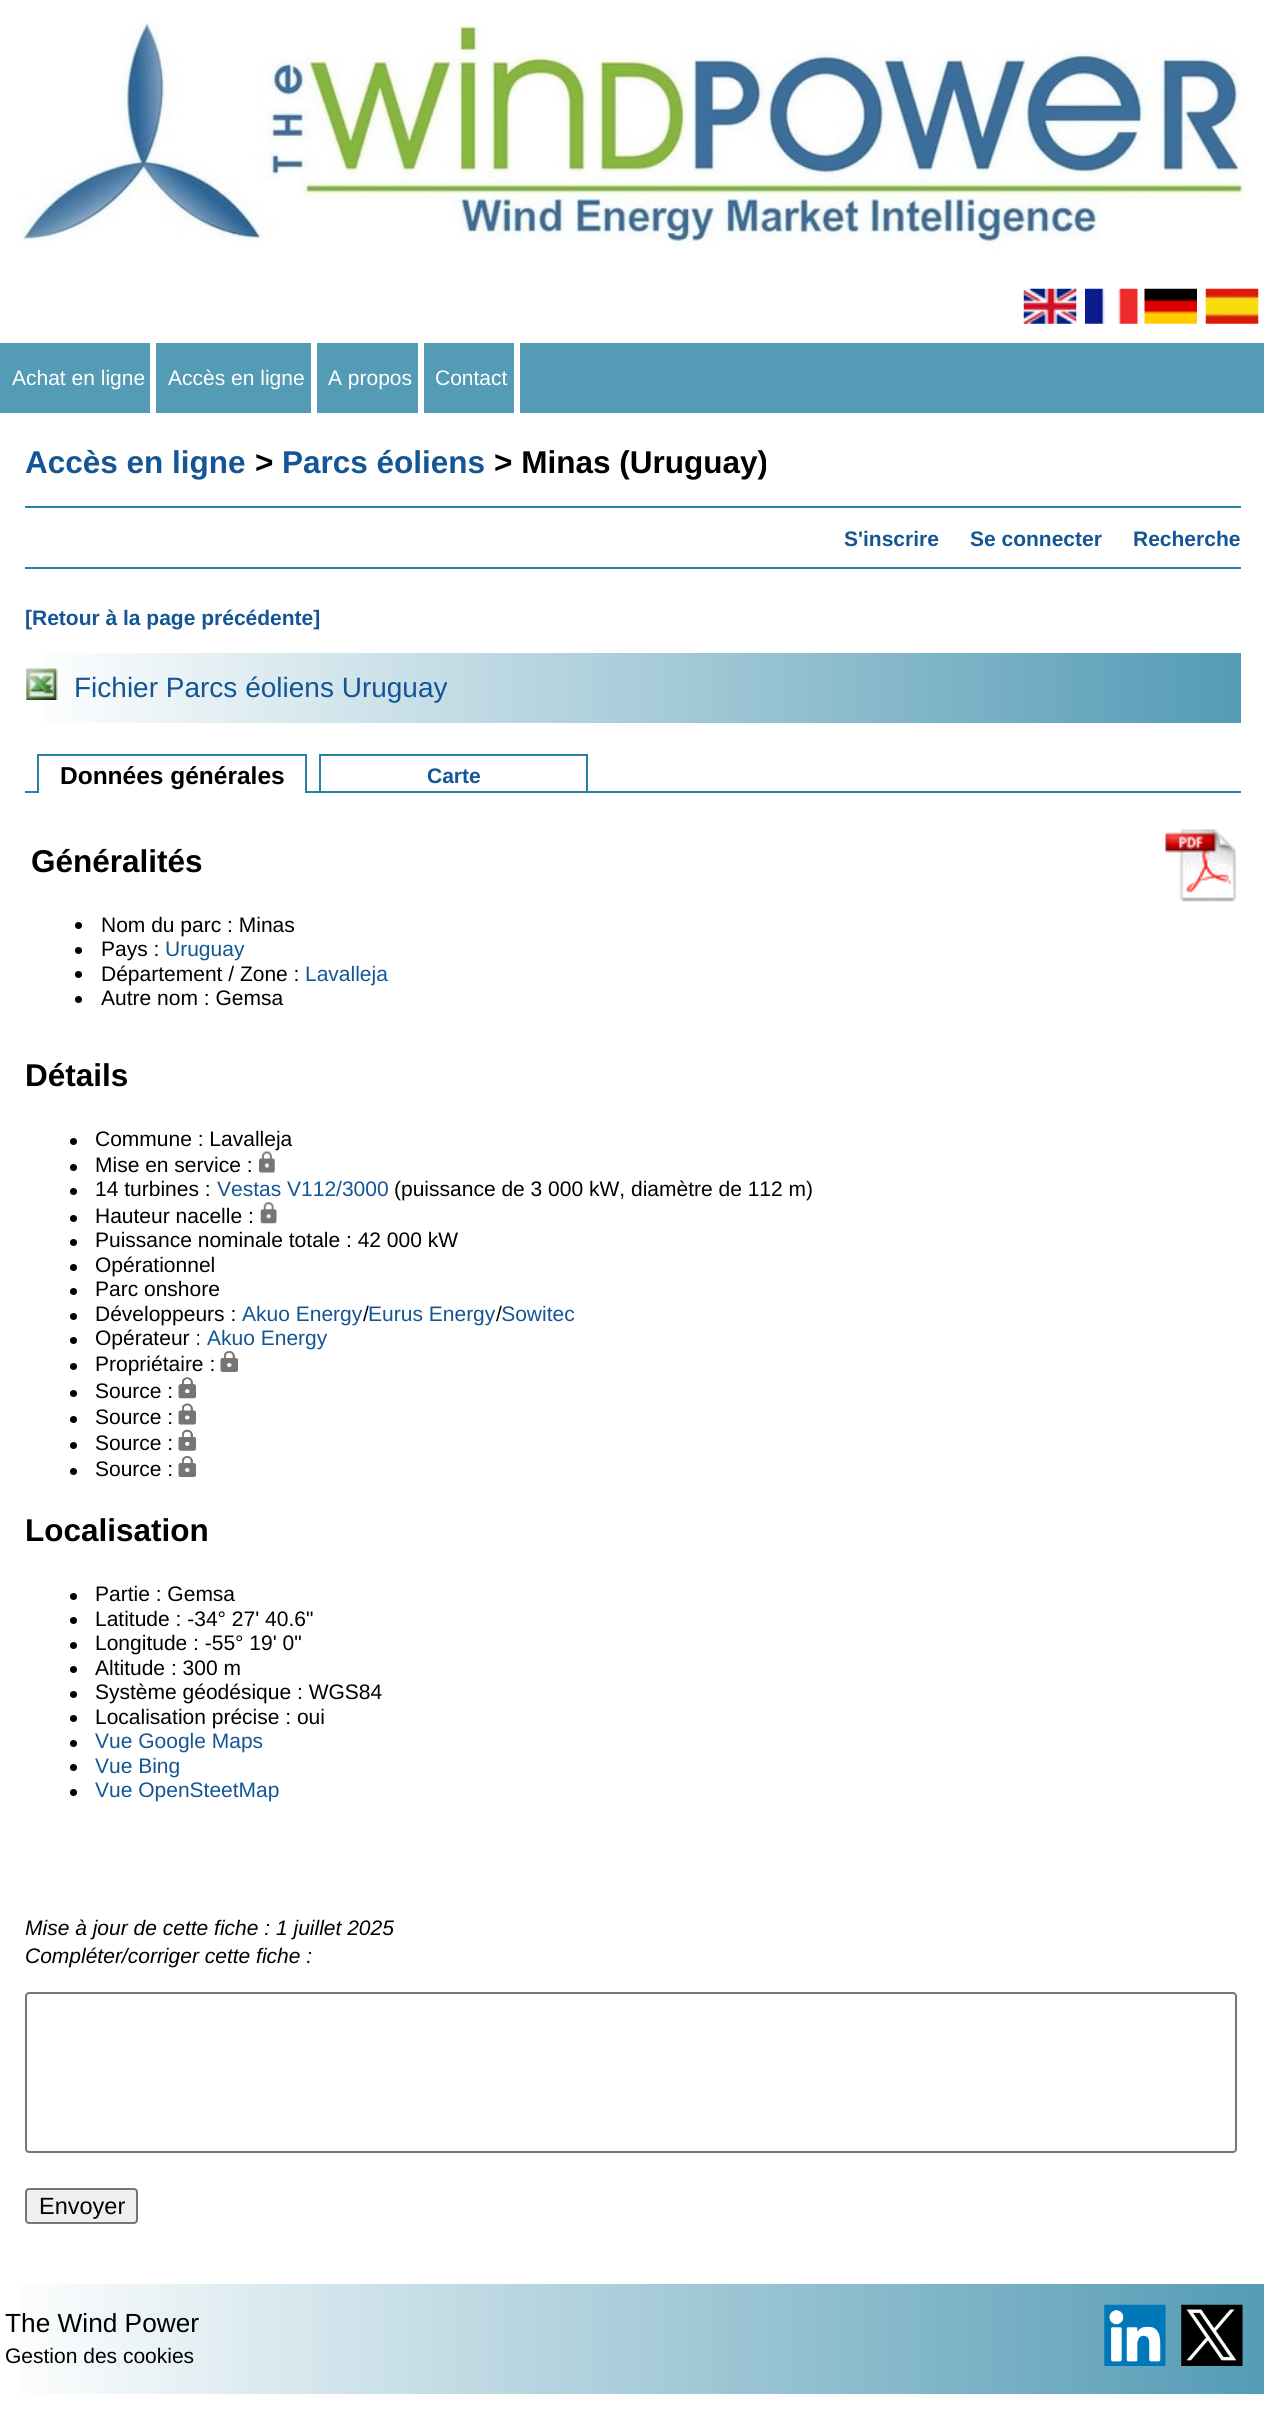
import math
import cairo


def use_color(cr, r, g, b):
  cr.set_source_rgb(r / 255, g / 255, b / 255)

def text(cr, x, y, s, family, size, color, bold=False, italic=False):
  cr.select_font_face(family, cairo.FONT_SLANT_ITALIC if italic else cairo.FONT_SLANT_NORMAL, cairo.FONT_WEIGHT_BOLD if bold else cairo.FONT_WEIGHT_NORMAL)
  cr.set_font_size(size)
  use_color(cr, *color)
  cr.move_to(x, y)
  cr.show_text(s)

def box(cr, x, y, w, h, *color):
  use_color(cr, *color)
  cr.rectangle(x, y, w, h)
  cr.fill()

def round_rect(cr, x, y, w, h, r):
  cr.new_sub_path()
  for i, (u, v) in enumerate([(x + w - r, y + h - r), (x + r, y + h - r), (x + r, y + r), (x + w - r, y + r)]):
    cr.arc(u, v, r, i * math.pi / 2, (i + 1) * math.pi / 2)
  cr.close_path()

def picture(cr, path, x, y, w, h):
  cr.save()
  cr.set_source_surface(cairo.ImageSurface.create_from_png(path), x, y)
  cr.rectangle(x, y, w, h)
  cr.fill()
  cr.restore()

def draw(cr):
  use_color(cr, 255, 255, 255)
  cr.paint()
  picture(cr, "img_01.png", 20, 20, 1227, 229)
  picture(cr, "img_02.png", 1023, 288, 54, 36)
  picture(cr, "img_03.png", 1085, 288, 53, 36)
  picture(cr, "img_04.png", 1144, 288, 53, 36)
  picture(cr, "img_05.png", 1205, 288, 54, 36)
  box(cr, 0, 343, 1264, 70, 84, 155, 181)
  box(cr, 150, 343, 6, 70, 255, 255, 255)
  box(cr, 311, 343, 6, 70, 255, 255, 255)
  box(cr, 418, 343, 6, 70, 255, 255, 255)
  box(cr, 514, 343, 6, 70, 255, 255, 255)
  box(cr, 25, 506, 1216, 2, 37, 128, 162)
  box(cr, 25, 567, 1216, 2, 37, 128, 162)
  gradient = cairo.LinearGradient(25, 688, 1241, 688)
  gradient.add_color_stop_rgba(0, 1, 1, 1, 1)
  gradient.add_color_stop_rgba(1, 0.329, 0.608, 0.71, 1)
  cr.set_source(gradient)
  cr.rectangle(43, 653, 1198, 70)
  cr.fill()
  picture(cr, "img_06.png", 26, 668, 32, 32)
  box(cr, 37, 754, 269, 2, 37, 128, 162)
  box(cr, 305, 754, 2, 39, 37, 128, 162)
  box(cr, 37, 754, 2, 39, 37, 128, 162)
  cr.rectangle(320, 755, 267, 37)
  cr.stroke()
  box(cr, 25, 791, 12, 2, 37, 128, 162)
  box(cr, 306, 791, 13, 2, 37, 128, 162)
  box(cr, 588, 791, 653, 2, 37, 128, 162)
  use_color(cr, 0, 0, 0)
  cr.arc(78.5, 925.5, 3.5, 0, 2 * math.pi)
  cr.fill()
  cr.arc(78.5, 950.5, 3.5, 0, 2 * math.pi)
  cr.fill()
  cr.arc(78.5, 974.5, 3.5, 0, 2 * math.pi)
  cr.fill()
  cr.arc(78.5, 999.5, 3.5, 0, 2 * math.pi)
  cr.fill()
  picture(cr, "img_07.png", 1165, 829, 71, 73)
  cr.arc(73.5, 1141.5, 3.5, 0, 2 * math.pi)
  cr.fill()
  cr.arc(73.5, 1167.5, 3.5, 0, 2 * math.pi)
  cr.fill()
  picture(cr, "img_08.png", 259, 1151, 16, 22)
  cr.arc(73.5, 1191.5, 3.5, 0, 2 * math.pi)
  cr.fill()
  cr.arc(73.5, 1218.5, 3.5, 0, 2 * math.pi)
  cr.fill()
  picture(cr, "img_09.png", 260, 1202, 17, 22)
  cr.arc(73.5, 1242.5, 3.5, 0, 2 * math.pi)
  cr.fill()
  cr.arc(73.5, 1267.5, 3.5, 0, 2 * math.pi)
  cr.fill()
  cr.arc(73.5, 1291.5, 3.5, 0, 2 * math.pi)
  cr.fill()
  cr.arc(73.5, 1316.5, 3.5, 0, 2 * math.pi)
  cr.fill()
  cr.arc(73.5, 1340.5, 3.5, 0, 2 * math.pi)
  cr.fill()
  cr.arc(73.5, 1366.5, 3.5, 0, 2 * math.pi)
  cr.fill()
  picture(cr, "img_10.png", 220, 1351, 18, 21)
  cr.arc(73.5, 1393.5, 3.5, 0, 2 * math.pi)
  cr.fill()
  picture(cr, "img_11.png", 178, 1377, 18, 22)
  cr.arc(73.5, 1419.5, 3.5, 0, 2 * math.pi)
  cr.fill()
  picture(cr, "img_12.png", 178, 1403, 18, 22)
  cr.arc(73.5, 1445.5, 3.5, 0, 2 * math.pi)
  cr.fill()
  picture(cr, "img_13.png", 178, 1429, 18, 22)
  cr.arc(73.5, 1471.5, 3.5, 0, 2 * math.pi)
  cr.fill()
  picture(cr, "img_10.png", 178, 1456, 18, 21)
  cr.arc(73.5, 1596.5, 3.5, 0, 2 * math.pi)
  cr.fill()
  cr.arc(73.5, 1620.5, 3.5, 0, 2 * math.pi)
  cr.fill()
  cr.arc(73.5, 1645.5, 3.5, 0, 2 * math.pi)
  cr.fill()
  cr.arc(73.5, 1669.5, 3.5, 0, 2 * math.pi)
  cr.fill()
  cr.arc(73.5, 1694.5, 3.5, 0, 2 * math.pi)
  cr.fill()
  cr.arc(73.5, 1718.5, 3.5, 0, 2 * math.pi)
  cr.fill()
  cr.arc(73.5, 1743.5, 3.5, 0, 2 * math.pi)
  cr.fill()
  cr.arc(73.5, 1767.5, 3.5, 0, 2 * math.pi)
  cr.fill()
  cr.arc(73.5, 1792.5, 3.5, 0, 2 * math.pi)
  cr.fill()
  round_rect(cr, 26, 1993, 1210, 159, 3)
  use_color(cr, 118, 118, 118)
  cr.stroke()
  use_color(cr, 239, 239, 239)
  round_rect(cr, 26, 2189, 111, 34, 3)
  cr.fill_preserve()
  use_color(cr, 118, 118, 118)
  cr.stroke()
  gradient = cairo.LinearGradient(0, 2339, 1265, 2339)
  gradient.add_color_stop_rgba(0, 1, 1, 1, 1)
  gradient.add_color_stop_rgba(1, 0.329, 0.608, 0.71, 1)
  cr.set_source(gradient)
  cr.rectangle(19, 2284, 1245, 110)
  cr.fill()
  picture(cr, "img_14.png", 1104, 2304, 62, 62)
  picture(cr, "img_15.png", 1181, 2304, 62, 62)
  text(cr, 12, 385, "Achat en ligne", "Liberation Sans", 21, (255, 255, 255))
  text(cr, 168, 385, "Accès en ligne", "Liberation Sans", 21, (255, 255, 255))
  text(cr, 328, 385, "A propos", "Liberation Sans", 21, (255, 255, 255))
  text(cr, 435, 385, "Contact", "Liberation Sans", 21, (255, 255, 255))
  text(cr, 25, 473, "Accès en ligne", "Liberation Sans", 31.5, (20, 85, 149), bold=True)
  text(cr, 255, 473, ">", "Liberation Sans", 31.5, (0, 0, 0), bold=True)
  text(cr, 282, 473, "Parcs éoliens", "Liberation Sans", 31.5, (20, 85, 149), bold=True)
  text(cr, 494, 473, "> Minas (Uruguay)", "Liberation Sans", 31.5, (0, 0, 0), bold=True)
  text(cr, 844, 546, "S'inscrire", "Liberation Sans", 21, (20, 85, 149), bold=True)
  text(cr, 970, 546, "Se connecter", "Liberation Sans", 21, (20, 85, 149), bold=True)
  text(cr, 1133, 546, "Recherche", "Liberation Sans", 21, (20, 85, 149), bold=True)
  text(cr, 25, 625, "[Retour à la page précédente]", "Liberation Sans", 21, (20, 85, 149), bold=True)
  text(cr, 74, 697, "Fichier Parcs éoliens Uruguay", "Liberation Sans", 28, (20, 85, 149))
  text(cr, 60, 784, "Données générales", "Liberation Sans", 24.5, (0, 0, 0), bold=True)
  text(cr, 427, 783, "Carte", "Liberation Sans", 21, (20, 85, 149), bold=True)
  text(cr, 31, 872, "Généralités", "Liberation Sans", 31.5, (0, 0, 0), bold=True)
  text(cr, 101, 932, "Nom du parc : Minas", "Liberation Sans", 21, (0, 0, 0))
  text(cr, 101, 956, "Pays :", "Liberation Sans", 21, (0, 0, 0))
  text(cr, 165, 956, "Uruguay", "Liberation Sans", 21, (20, 85, 149))
  text(cr, 101, 981, "Département / Zone :", "Liberation Sans", 21, (0, 0, 0))
  text(cr, 305, 981, "Lavalleja", "Liberation Sans", 21, (20, 85, 149))
  text(cr, 101, 1005, "Autre nom : Gemsa", "Liberation Sans", 21, (0, 0, 0))
  text(cr, 25, 1086, "Détails", "Liberation Sans", 31.5, (0, 0, 0), bold=True)
  text(cr, 95, 1146, "Commune : Lavalleja", "Liberation Sans", 21, (0, 0, 0))
  text(cr, 95, 1172, "Mise en service :", "Liberation Sans", 21, (0, 0, 0))
  text(cr, 95, 1196, "14 turbines :", "Liberation Sans", 21, (0, 0, 0))
  text(cr, 217, 1196, "Vestas V112/3000", "Liberation Sans", 21, (20, 85, 149))
  text(cr, 394, 1196, "(puissance de 3 000 kW, diamètre de 112 m)", "Liberation Sans", 21, (0, 0, 0))
  text(cr, 95, 1223, "Hauteur nacelle :", "Liberation Sans", 21, (0, 0, 0))
  text(cr, 95, 1247, "Puissance nominale totale : 42 000 kW", "Liberation Sans", 21, (0, 0, 0))
  text(cr, 95, 1272, "Opérationnel", "Liberation Sans", 21, (0, 0, 0))
  text(cr, 95, 1296, "Parc onshore", "Liberation Sans", 21, (0, 0, 0))
  text(cr, 95, 1321, "Développeurs :", "Liberation Sans", 21, (0, 0, 0))
  text(cr, 242, 1321, "Akuo Energy Eurus Energy Sowitec", "Liberation Sans", 21, (20, 85, 149))
  text(cr, 363, 1321, "/", "Liberation Sans", 21, (0, 0, 0))
  text(cr, 496, 1321, "/", "Liberation Sans", 21, (0, 0, 0))
  text(cr, 95, 1345, "Opérateur :", "Liberation Sans", 21, (0, 0, 0))
  text(cr, 207, 1345, "Akuo Energy", "Liberation Sans", 21, (20, 85, 149))
  text(cr, 95, 1371, "Propriétaire :", "Liberation Sans", 21, (0, 0, 0))
  text(cr, 95, 1398, "Source :", "Liberation Sans", 21, (0, 0, 0))
  text(cr, 95, 1424, "Source :", "Liberation Sans", 21, (0, 0, 0))
  text(cr, 95, 1450, "Source :", "Liberation Sans", 21, (0, 0, 0))
  text(cr, 95, 1476, "Source :", "Liberation Sans", 21, (0, 0, 0))
  text(cr, 25, 1541, "Localisation", "Liberation Sans", 31.5, (0, 0, 0), bold=True)
  text(cr, 95, 1601, "Partie : Gemsa", "Liberation Sans", 21, (0, 0, 0))
  text(cr, 95, 1626, "Latitude : -34° 27' 40.6\"", "Liberation Sans", 21, (0, 0, 0))
  text(cr, 95, 1650, "Longitude : -55° 19' 0\"", "Liberation Sans", 21, (0, 0, 0))
  text(cr, 95, 1675, "Altitude : 300 m", "Liberation Sans", 21, (0, 0, 0))
  text(cr, 95, 1699, "Système géodésique : WGS84", "Liberation Sans", 21, (0, 0, 0))
  text(cr, 95, 1724, "Localisation précise : oui", "Liberation Sans", 21, (0, 0, 0))
  text(cr, 95, 1748, "Vue Google Maps", "Liberation Sans", 21, (20, 85, 149))
  text(cr, 95, 1773, "Vue Bing", "Liberation Sans", 21, (20, 85, 149))
  text(cr, 95, 1797, "Vue OpenSteetMap", "Liberation Sans", 21, (20, 85, 149))
  text(cr, 25, 1935, "Mise à jour de cette fiche : 1 juillet 2025", "Liberation Sans", 21, (0, 0, 0), italic=True)
  text(cr, 25, 1963, "Compléter/corriger cette fiche :", "Liberation Sans", 21, (0, 0, 0), italic=True)
  text(cr, 39, 2214, "Envoyer", "Liberation Sans", 23.5, (0, 0, 0))
  text(cr, 5, 2332, "The Wind Power", "Liberation Sans", 26.25, (0, 0, 0))
  text(cr, 5, 2363, "Gestion des cookies", "Liberation Sans", 21, (0, 0, 0))


surface = cairo.ImageSurface(cairo.FORMAT_RGB24, 1264, 2436)
cr = cairo.Context(surface)
options = cairo.FontOptions()
options.set_hint_metrics(cairo.HINT_METRICS_OFF)
options.set_hint_style(cairo.HINT_STYLE_NONE)
cr.set_font_options(options)
cr.set_miter_limit(4)
draw(cr)
surface.write_to_png("out.png")
